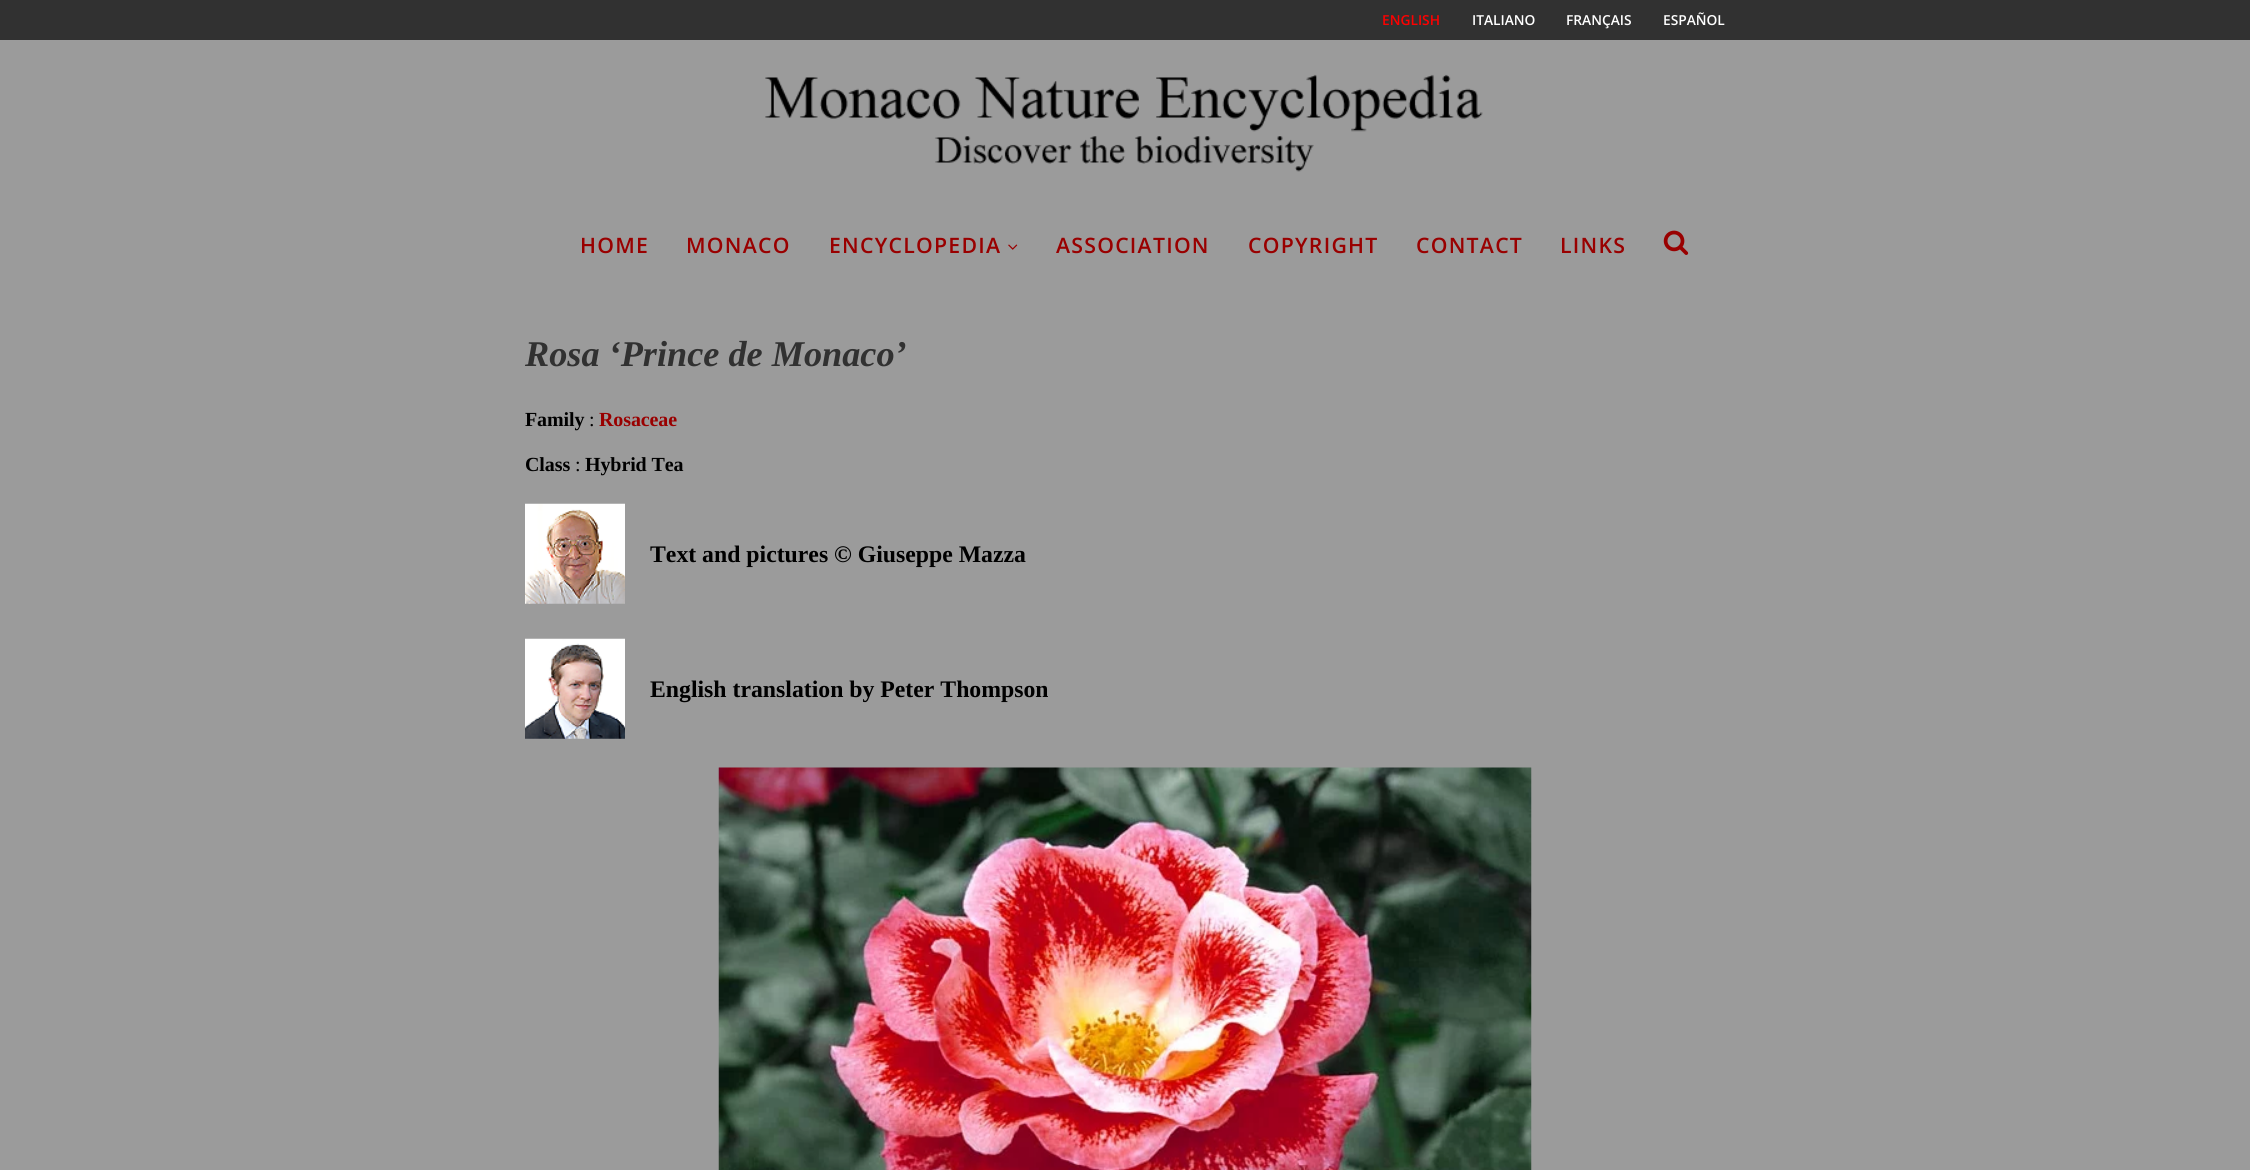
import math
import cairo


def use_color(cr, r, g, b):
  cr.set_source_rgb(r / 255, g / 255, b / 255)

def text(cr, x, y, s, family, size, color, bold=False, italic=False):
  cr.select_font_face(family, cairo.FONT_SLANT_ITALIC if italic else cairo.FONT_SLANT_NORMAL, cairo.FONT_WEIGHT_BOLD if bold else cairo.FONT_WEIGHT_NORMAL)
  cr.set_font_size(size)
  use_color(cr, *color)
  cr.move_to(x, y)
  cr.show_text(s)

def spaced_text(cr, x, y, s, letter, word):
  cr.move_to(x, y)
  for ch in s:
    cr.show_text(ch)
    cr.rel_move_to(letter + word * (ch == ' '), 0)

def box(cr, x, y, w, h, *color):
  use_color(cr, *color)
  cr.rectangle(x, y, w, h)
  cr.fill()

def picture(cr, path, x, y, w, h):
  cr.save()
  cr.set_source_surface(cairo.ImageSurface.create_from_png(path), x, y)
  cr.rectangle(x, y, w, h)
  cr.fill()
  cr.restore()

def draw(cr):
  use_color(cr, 155, 155, 155)
  cr.paint()
  box(cr, 0, 0, 2250, 40, 49, 49, 49)
  picture(cr, "img_01.png", 765, 74, 718, 98)
  picture(cr, "img_02.png", 1008, 244, 10, 6)
  picture(cr, "img_03.png", 1663, 230, 26, 25)
  picture(cr, "img_04.png", 525, 503, 100, 101)
  picture(cr, "img_05.png", 525, 638, 100, 101)
  picture(cr, "img_06.png", 718, 767, 814, 403)
  text(cr, 1382, 25, "ENGLISH", "Open Sans SemiBold", 13.75, (255, 0, 0))
  text(cr, 1472, 25, "ITALIANO", "Open Sans SemiBold", 13.75, (255, 255, 255))
  text(cr, 1566, 25, "FRANÇAIS", "Open Sans SemiBold", 13.75, (255, 255, 255))
  text(cr, 1663, 25, "ESPAÑOL", "Open Sans SemiBold", 13.75, (255, 255, 255))
  cr.set_font_size(21.25)
  use_color(cr, 153, 0, 0)
  spaced_text(cr, 580, 253, "HOME", 1.25, 0)
  spaced_text(cr, 686, 253, "MONACO", 1.25, 0)
  spaced_text(cr, 829, 253, "ENCYCLOPEDIA", 1.25, 0)
  spaced_text(cr, 1056, 253, "ASSOCIATION", 1.25, 0)
  spaced_text(cr, 1248, 253, "COPYRIGHT", 1.25, 0)
  spaced_text(cr, 1416, 253, "CONTACT", 1.25, 0)
  spaced_text(cr, 1560, 253, "LINKS", 1.25, 0)
  text(cr, 525, 366, "Rosa ‘Prince de Monaco’", "Liberation Serif", 36.25, (49, 49, 49), bold=True, italic=True)
  cr.select_font_face("Liberation Serif", cairo.FONT_SLANT_NORMAL, cairo.FONT_WEIGHT_BOLD)
  cr.set_font_size(20)
  use_color(cr, 0, 0, 0)
  spaced_text(cr, 525, 426, "Family", -0.1, 0)
  cr.select_font_face("Liberation Serif")
  spaced_text(cr, 589, 426, ":", -0.1, 0)
  cr.select_font_face("Liberation Serif", cairo.FONT_SLANT_NORMAL, cairo.FONT_WEIGHT_BOLD)
  use_color(cr, 153, 0, 0)
  spaced_text(cr, 599, 426, "Rosaceae", -0.1, 0)
  use_color(cr, 0, 0, 0)
  spaced_text(cr, 525, 471, "Class", -0.1, 0)
  cr.select_font_face("Liberation Serif")
  spaced_text(cr, 575, 471, ":", -0.1, 0)
  cr.select_font_face("Liberation Serif", cairo.FONT_SLANT_NORMAL, cairo.FONT_WEIGHT_BOLD)
  spaced_text(cr, 585, 471, "Hybrid Tea", -0.1, 0)
  text(cr, 650, 562, "Text and pictures © Giuseppe Mazza", "Liberation Serif", 23.75, (0, 0, 0), bold=True)
  text(cr, 650, 697, "English translation by Peter Thompson", "Liberation Serif", 23.75, (0, 0, 0), bold=True)


surface = cairo.ImageSurface(cairo.FORMAT_RGB24, 2250, 1170)
cr = cairo.Context(surface)
options = cairo.FontOptions()
options.set_hint_metrics(cairo.HINT_METRICS_OFF)
options.set_hint_style(cairo.HINT_STYLE_NONE)
cr.set_font_options(options)
cr.set_miter_limit(4)
draw(cr)
surface.write_to_png("out.png")
